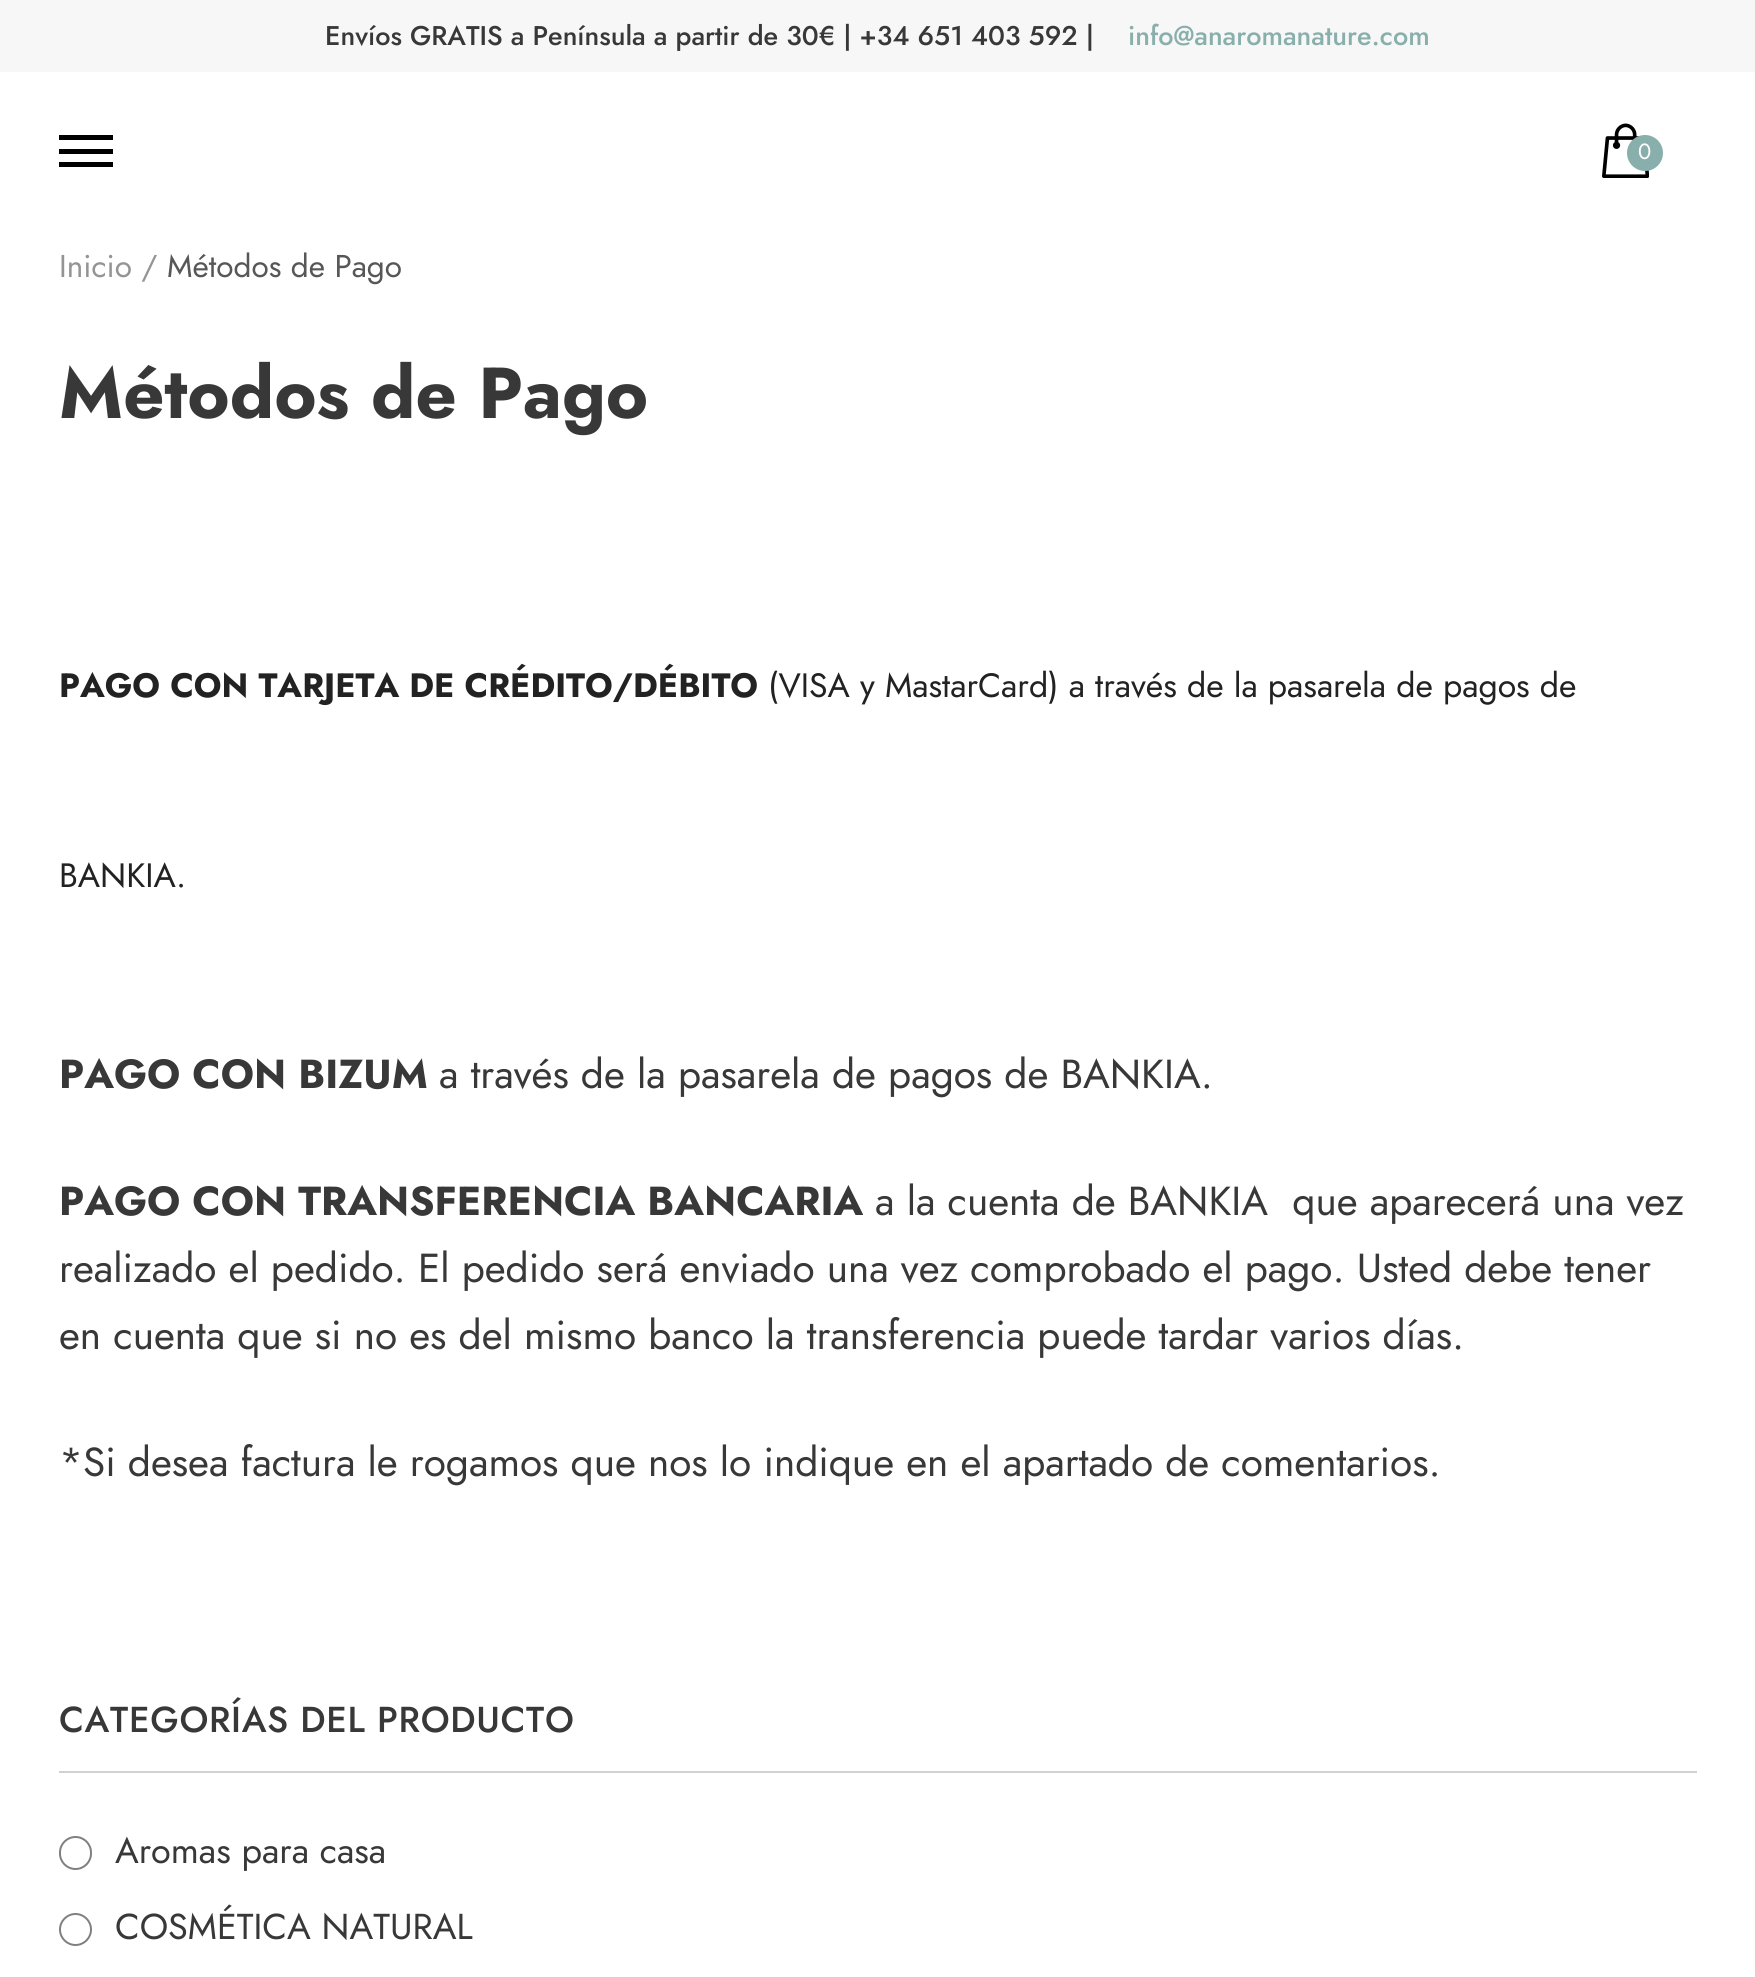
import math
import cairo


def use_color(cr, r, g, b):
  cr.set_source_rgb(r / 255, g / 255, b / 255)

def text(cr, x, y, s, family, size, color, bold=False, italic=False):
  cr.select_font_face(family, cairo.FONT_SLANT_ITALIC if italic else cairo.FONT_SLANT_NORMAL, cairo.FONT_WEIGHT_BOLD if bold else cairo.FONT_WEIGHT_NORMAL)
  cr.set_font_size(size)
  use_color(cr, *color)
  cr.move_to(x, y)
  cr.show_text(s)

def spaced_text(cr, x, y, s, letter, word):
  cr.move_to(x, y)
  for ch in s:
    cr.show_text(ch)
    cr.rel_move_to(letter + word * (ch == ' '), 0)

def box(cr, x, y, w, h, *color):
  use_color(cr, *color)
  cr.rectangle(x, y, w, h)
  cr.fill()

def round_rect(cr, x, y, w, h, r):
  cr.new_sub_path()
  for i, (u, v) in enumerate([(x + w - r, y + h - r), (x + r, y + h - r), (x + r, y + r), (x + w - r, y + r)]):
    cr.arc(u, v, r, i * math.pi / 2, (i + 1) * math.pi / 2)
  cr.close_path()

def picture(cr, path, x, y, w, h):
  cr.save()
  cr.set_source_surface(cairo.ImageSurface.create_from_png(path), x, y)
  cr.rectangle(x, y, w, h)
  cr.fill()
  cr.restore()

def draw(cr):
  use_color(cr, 255, 255, 255)
  cr.paint()
  box(cr, 0, 0, 1755, 72, 247, 247, 247)
  box(cr, 59, 135, 54, 5, 0, 0, 0)
  box(cr, 59, 149, 54, 5, 0, 0, 0)
  box(cr, 59, 162, 54, 5, 0, 0, 0)
  picture(cr, "img_01.png", 1602, 123, 47, 55)
  use_color(cr, 137, 175, 172)
  cr.arc(1645, 153, 18, 0, 2 * math.pi)
  cr.fill()
  box(cr, 59, 1771, 1638, 2, 209, 209, 209)
  round_rect(cr, 60, 1837, 31, 32, 15.5)
  use_color(cr, 128, 128, 128)
  cr.stroke()
  cr.arc(75.5, 1929.5, 15.5, 0, 2 * math.pi)
  cr.stroke()
  text(cr, 325, 45, "Envíos GRATIS a Península a partir de 30€ | +34 651 403 592 |", "Jost Medium", 27, (56, 56, 56))
  text(cr, 1128, 45, "info@anaromanature.com", "Jost Medium", 27, (137, 175, 172))
  text(cr, 1638, 159, "0", "Jost", 22, (255, 255, 255))
  text(cr, 59, 277, "Inicio /", "Jost", 31.5, (150, 147, 147))
  text(cr, 167, 277, "Métodos de Pago", "Jost", 31.5, (87, 87, 87))
  text(cr, 59, 418, "Métodos de Pago", "Jost", 72, (56, 56, 56), bold=True)
  text(cr, 59, 697, "PAGO CON TARJETA DE CRÉDITO/DÉBITO", "Jost", 33.75, (34, 34, 34), bold=True)
  text(cr, 768, 697, "(VISA y MastarCard) a través de la pasarela de pagos de", "Jost", 33.75, (34, 34, 34))
  text(cr, 59, 887, "BANKIA.", "Jost", 33.75, (34, 34, 34))
  text(cr, 59, 1088, "PAGO CON BIZUM", "Jost", 40.5, (56, 56, 56), bold=True)
  text(cr, 439, 1088, "a través de la pasarela de pagos de BANKIA.", "Jost", 40.5, (56, 56, 56))
  text(cr, 59, 1215, "PAGO CON TRANSFERENCIA BANCARIA", "Jost", 40.5, (56, 56, 56), bold=True)
  text(cr, 875, 1215, "a la cuenta de BANKIA  que aparecerá una vez", "Jost", 40.5, (56, 56, 56))
  text(cr, 59, 1282, "realizado el pedido. El pedido será enviado una vez comprobado el pago. Usted debe tener", "Jost", 40.5, (56, 56, 56))
  text(cr, 59, 1349, "en cuenta que si no es del mismo banco la transferencia puede tardar varios días.", "Jost", 40.5, (56, 56, 56))
  text(cr, 59, 1476, "*Si desea factura le rogamos que nos lo indique en el apartado de comentarios.", "Jost", 40.5, (56, 56, 56))
  cr.select_font_face("Jost Medium")
  cr.set_font_size(36)
  spaced_text(cr, 59, 1732, "CATEGORÍAS DEL PRODUCTO", 0.7, 0)
  text(cr, 115, 1863, "Aromas para casa", "Jost", 36, (56, 56, 56))
  text(cr, 115, 1939, "COSMÉTICA NATURAL", "Jost", 36, (56, 56, 56))


surface = cairo.ImageSurface(cairo.FORMAT_RGB24, 1755, 1977)
cr = cairo.Context(surface)
options = cairo.FontOptions()
options.set_hint_metrics(cairo.HINT_METRICS_OFF)
options.set_hint_style(cairo.HINT_STYLE_NONE)
cr.set_font_options(options)
cr.set_miter_limit(4)
draw(cr)
surface.write_to_png("out.png")
